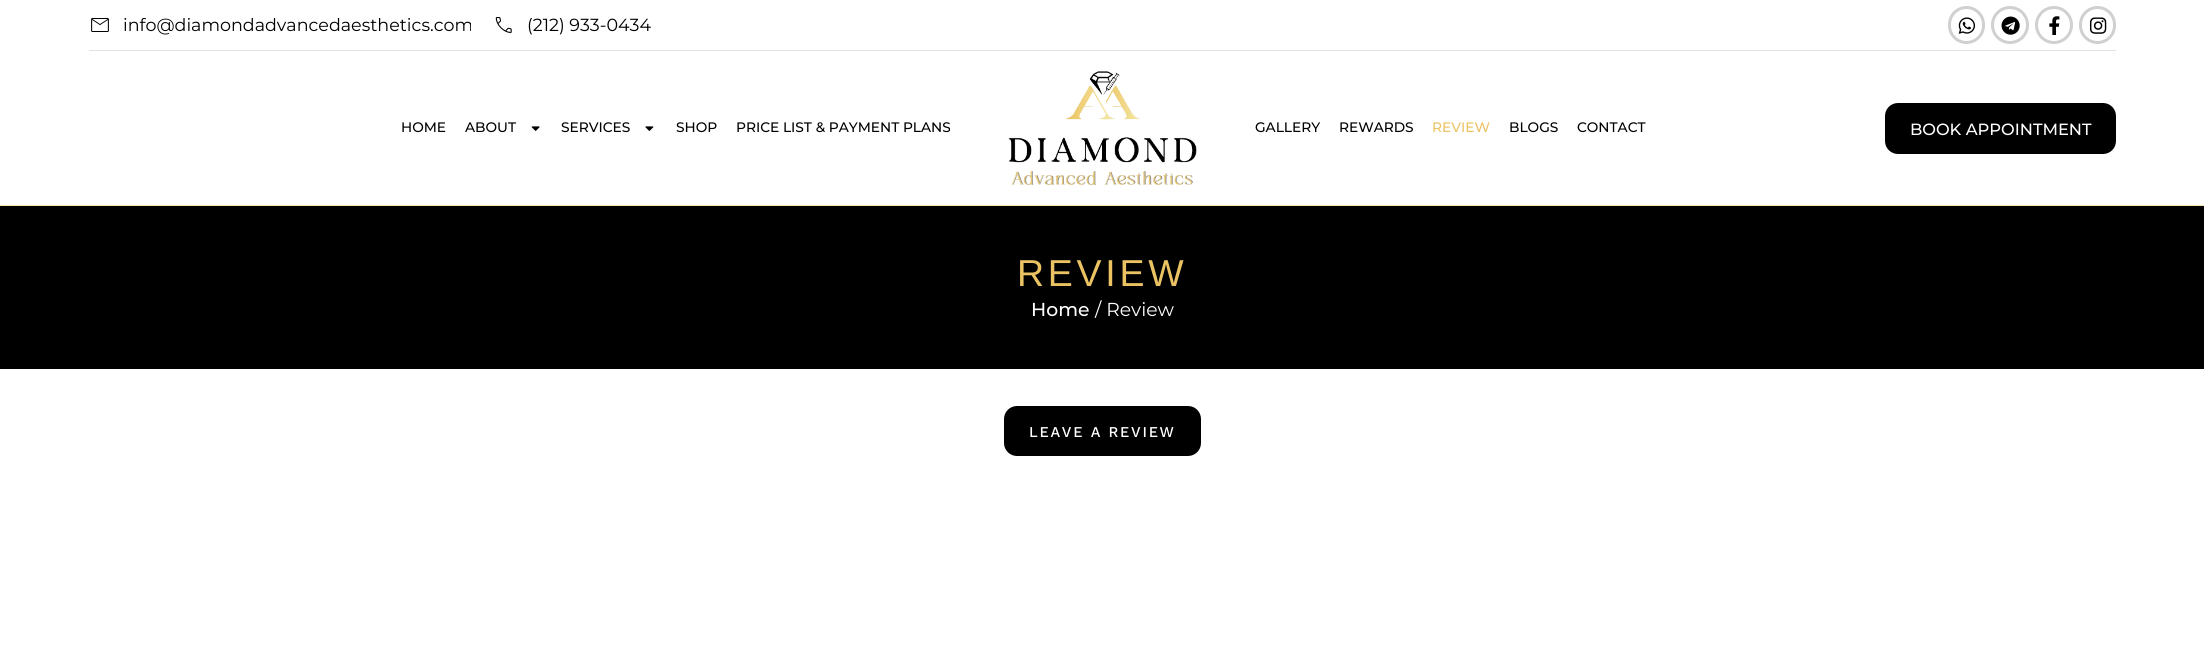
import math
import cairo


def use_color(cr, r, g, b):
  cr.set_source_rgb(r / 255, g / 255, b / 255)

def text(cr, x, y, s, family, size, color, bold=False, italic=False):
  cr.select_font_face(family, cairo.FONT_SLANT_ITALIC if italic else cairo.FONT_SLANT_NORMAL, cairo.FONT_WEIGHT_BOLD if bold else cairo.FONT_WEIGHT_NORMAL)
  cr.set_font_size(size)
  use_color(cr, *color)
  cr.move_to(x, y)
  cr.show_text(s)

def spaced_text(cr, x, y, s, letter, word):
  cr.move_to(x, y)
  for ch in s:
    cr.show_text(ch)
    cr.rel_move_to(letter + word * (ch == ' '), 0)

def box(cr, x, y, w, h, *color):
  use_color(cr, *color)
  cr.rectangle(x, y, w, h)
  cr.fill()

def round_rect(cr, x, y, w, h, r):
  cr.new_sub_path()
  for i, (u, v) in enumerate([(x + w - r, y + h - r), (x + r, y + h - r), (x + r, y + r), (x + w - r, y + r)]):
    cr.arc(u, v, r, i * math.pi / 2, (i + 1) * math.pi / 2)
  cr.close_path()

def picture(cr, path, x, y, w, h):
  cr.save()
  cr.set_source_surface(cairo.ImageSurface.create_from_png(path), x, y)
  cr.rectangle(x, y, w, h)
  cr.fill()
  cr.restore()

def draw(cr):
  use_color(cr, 255, 255, 255)
  cr.paint()
  box(cr, 0, 205, 2204, 1, 247, 234, 170)
  picture(cr, "img_01.png", 91, 18, 18, 14)
  picture(cr, "img_02.png", 495, 17, 17, 16)
  round_rect(cr, 1949.5, 7.5, 34, 35, 17)
  use_color(cr, 208, 208, 208)
  cr.set_line_width(3)
  cr.stroke()
  picture(cr, "img_03.png", 1958, 17, 18, 17)
  cr.arc(2010, 25, 17.5, 0, 2 * math.pi)
  cr.stroke()
  picture(cr, "img_04.png", 2001, 16, 19, 19)
  cr.arc(2054, 25, 17.5, 0, 2 * math.pi)
  cr.stroke()
  picture(cr, "img_05.png", 2049, 16, 11, 19)
  round_rect(cr, 2080.5, 7.5, 34, 35, 17)
  cr.stroke()
  picture(cr, "img_06.png", 2089, 17, 18, 17)
  box(cr, 89, 50, 2027, 1, 227, 227, 227)
  picture(cr, "img_07.png", 531, 126, 9, 5)
  picture(cr, "img_08.png", 645, 126, 9, 5)
  picture(cr, "img_09.png", 1008, 71, 189, 114)
  use_color(cr, 0, 0, 0)
  round_rect(cr, 1885, 103, 231, 51, 13)
  cr.fill()
  box(cr, 0, 206, 2204, 163, 0, 0, 0)
  round_rect(cr, 1004, 406, 197, 50, 13)
  cr.fill()
  text(cr, 123, 31, "info@diamondadvancedaesthetics.com", "Montserrat", 17.5, (0, 0, 0))
  text(cr, 527, 31, "(212) 933-0434", "Montserrat", 17.5, (0, 0, 0))
  text(cr, 401, 132, "HOME", "Montserrat Medium", 13.75, (0, 0, 0))
  text(cr, 465, 132, "ABOUT", "Montserrat Medium", 13.75, (0, 0, 0))
  text(cr, 561, 132, "SERVICES", "Montserrat Medium", 13.75, (0, 0, 0))
  text(cr, 676, 132, "SHOP", "Montserrat Medium", 13.75, (0, 0, 0))
  text(cr, 736, 132, "PRICE LIST & PAYMENT PLANS", "Montserrat Medium", 13.75, (0, 0, 0))
  text(cr, 1255, 132, "GALLERY", "Montserrat Medium", 13.75, (0, 0, 0))
  text(cr, 1339, 132, "REWARDS", "Montserrat Medium", 13.75, (0, 0, 0))
  text(cr, 1432, 132, "REVIEW", "Montserrat Medium", 13.75, (235, 195, 99))
  text(cr, 1509, 132, "BLOGS", "Montserrat Medium", 13.75, (0, 0, 0))
  text(cr, 1577, 132, "CONTACT", "Montserrat Medium", 13.75, (0, 0, 0))
  text(cr, 1910, 135, "BOOK APPOINTMENT", "Montserrat Medium", 16.25, (255, 255, 255))
  cr.select_font_face("Liberation Sans")
  cr.set_font_size(37.5)
  use_color(cr, 235, 195, 99)
  spaced_text(cr, 1017, 286, "REVIEW", 3.75, 0)
  text(cr, 1031, 316, "Home", "Montserrat Medium", 18.75, (255, 255, 255))
  text(cr, 1095, 316, "/ Review", "Montserrat", 18.75, (255, 255, 255))
  cr.select_font_face("Kantumruy Pro Medium")
  cr.set_font_size(15)
  spaced_text(cr, 1029, 437, "LEAVE A REVIEW", 1.75, 0)


surface = cairo.ImageSurface(cairo.FORMAT_RGB24, 2204, 645)
cr = cairo.Context(surface)
options = cairo.FontOptions()
options.set_hint_metrics(cairo.HINT_METRICS_OFF)
options.set_hint_style(cairo.HINT_STYLE_NONE)
cr.set_font_options(options)
cr.set_miter_limit(4)
draw(cr)
surface.write_to_png("out.png")
